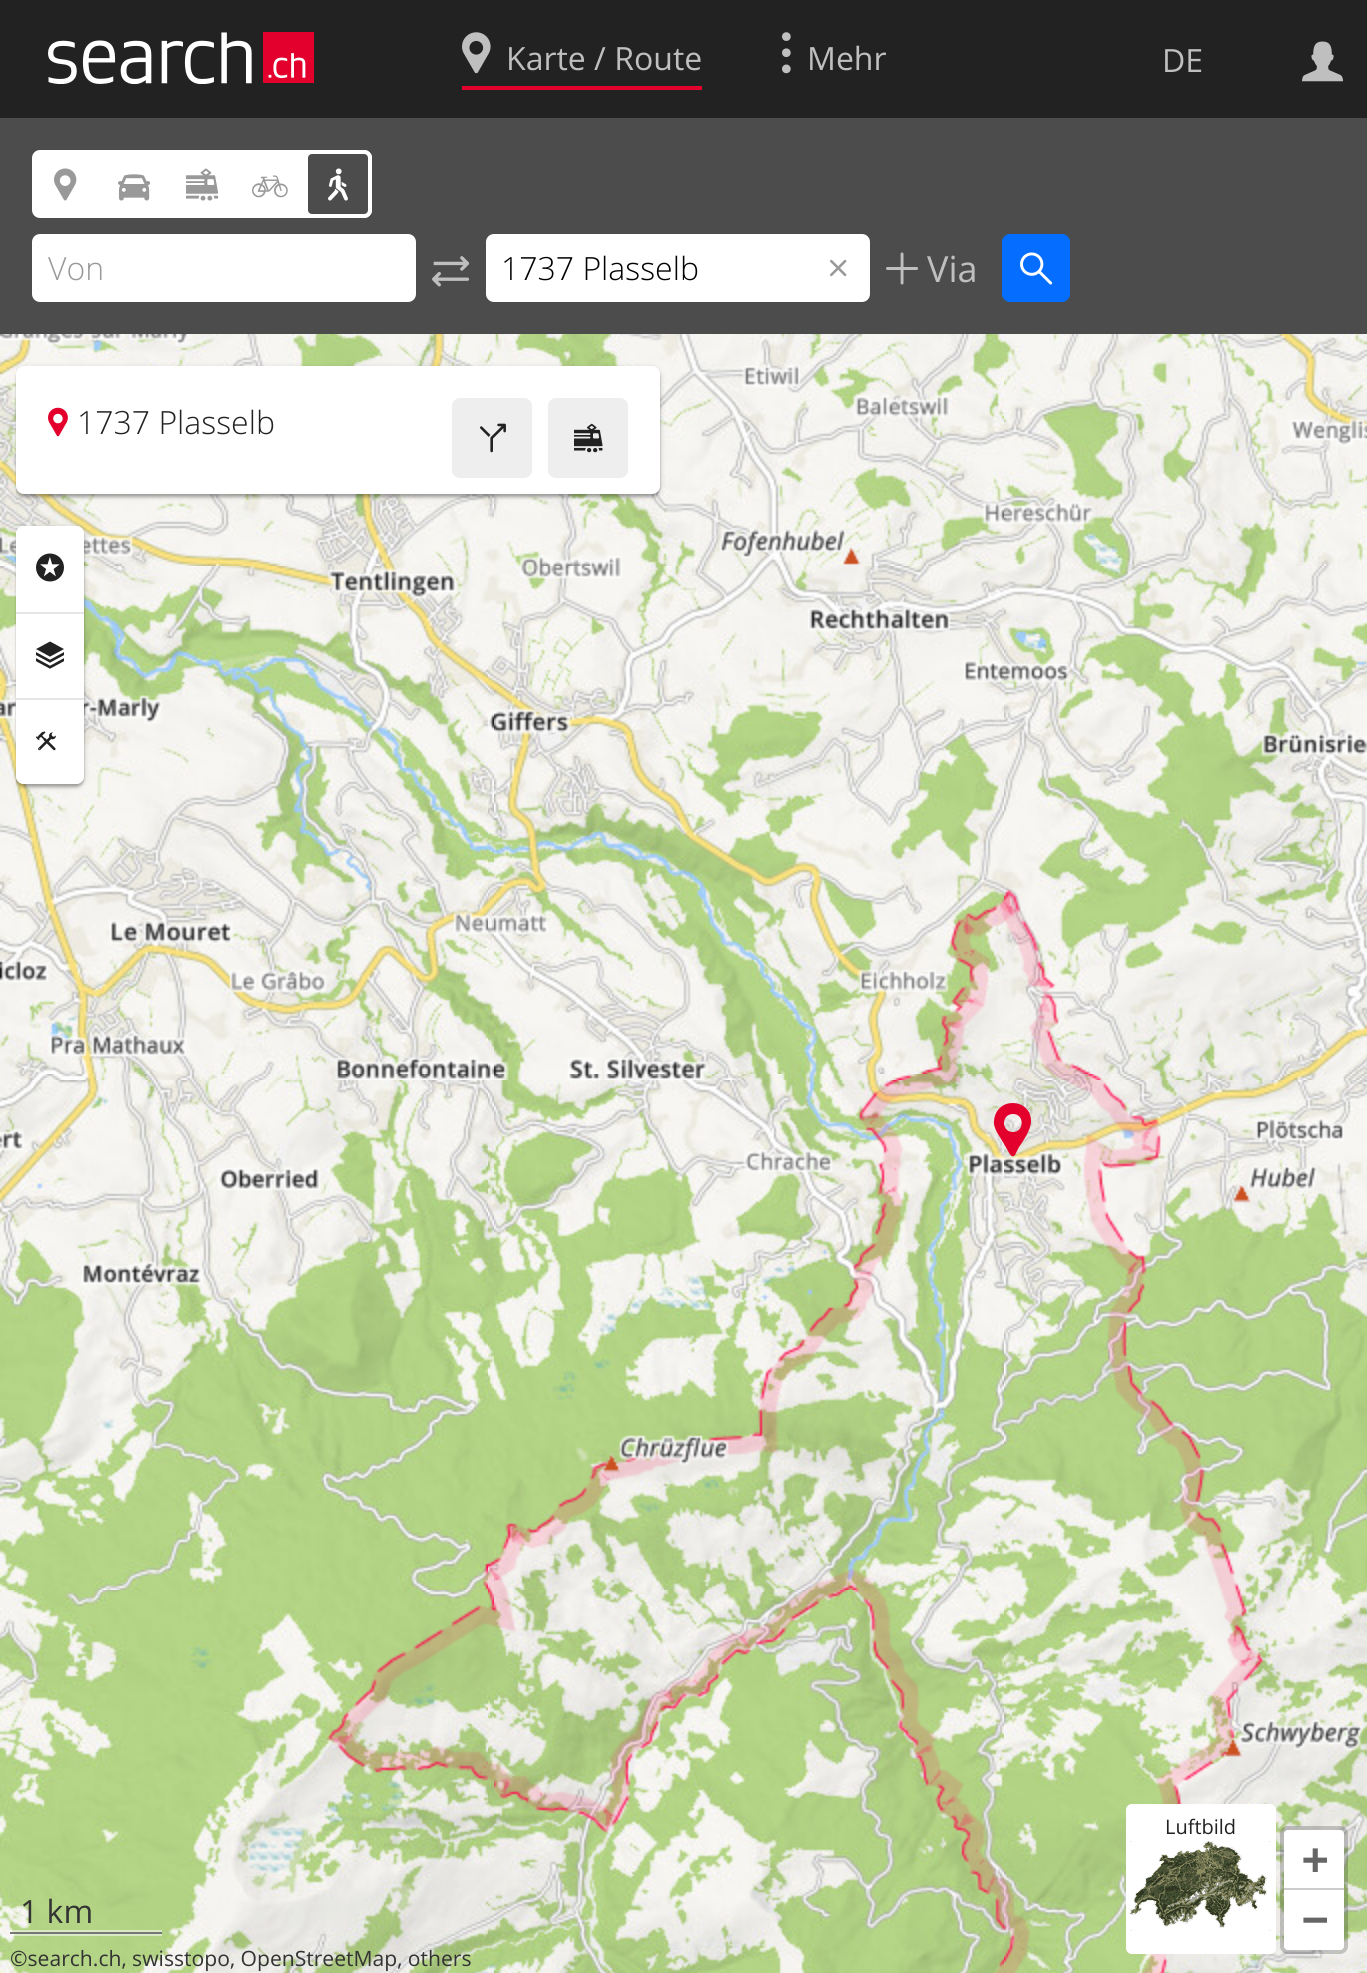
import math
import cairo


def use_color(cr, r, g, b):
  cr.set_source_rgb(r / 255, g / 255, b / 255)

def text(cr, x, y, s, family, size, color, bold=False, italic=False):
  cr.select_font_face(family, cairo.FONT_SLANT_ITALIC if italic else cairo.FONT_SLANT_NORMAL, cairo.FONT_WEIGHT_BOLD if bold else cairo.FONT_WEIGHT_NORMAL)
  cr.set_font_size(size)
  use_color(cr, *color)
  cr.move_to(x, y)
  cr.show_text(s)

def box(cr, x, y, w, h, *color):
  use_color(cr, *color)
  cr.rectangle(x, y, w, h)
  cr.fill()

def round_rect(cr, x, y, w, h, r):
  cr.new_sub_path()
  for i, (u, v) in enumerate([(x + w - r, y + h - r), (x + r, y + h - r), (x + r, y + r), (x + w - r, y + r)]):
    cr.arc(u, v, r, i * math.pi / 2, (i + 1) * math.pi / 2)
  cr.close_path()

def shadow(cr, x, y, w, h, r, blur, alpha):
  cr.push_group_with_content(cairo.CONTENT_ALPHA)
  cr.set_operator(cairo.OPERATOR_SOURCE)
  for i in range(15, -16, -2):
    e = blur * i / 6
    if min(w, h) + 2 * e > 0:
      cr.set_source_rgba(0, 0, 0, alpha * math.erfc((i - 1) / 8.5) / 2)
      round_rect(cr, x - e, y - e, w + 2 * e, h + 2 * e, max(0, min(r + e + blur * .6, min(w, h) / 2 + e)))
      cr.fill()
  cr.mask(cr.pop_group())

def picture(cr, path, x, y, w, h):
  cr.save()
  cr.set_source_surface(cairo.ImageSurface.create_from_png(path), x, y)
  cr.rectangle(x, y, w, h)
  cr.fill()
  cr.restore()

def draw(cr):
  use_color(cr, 255, 255, 255)
  cr.paint()
  box(cr, 0, 0, 1367, 118, 34, 34, 34)
  picture(cr, "img_01.png", 48, 32, 266, 52)
  box(cr, 462, 86, 240, 4, 228, 0, 44)
  picture(cr, "img_02.png", 462, 32, 29, 42)
  picture(cr, "img_03.png", 782, 32, 9, 42)
  picture(cr, "img_04.png", 1302, 41, 42, 41)
  box(cr, 0, 118, 1367, 216, 76, 76, 76)
  use_color(cr, 255, 255, 255)
  round_rect(cr, 32, 150, 340, 68, 8)
  cr.fill()
  picture(cr, "img_05.png", 54, 168, 23, 33)
  picture(cr, "img_06.png", 186, 168, 33, 33)
  use_color(cr, 76, 76, 76)
  round_rect(cr, 306, 152, 64, 64, 6)
  cr.fill_preserve()
  use_color(cr, 255, 255, 255)
  cr.set_line_width(4)
  cr.stroke()
  picture(cr, "img_07.png", 118, 174, 33, 27)
  picture(cr, "img_08.png", 252, 175, 36, 23)
  picture(cr, "img_09.png", 328, 168, 20, 33)
  round_rect(cr, 32, 234, 384, 68, 8)
  cr.fill()
  picture(cr, "img_10.png", 432, 256, 38, 31)
  round_rect(cr, 486, 234, 384, 68, 8)
  cr.fill()
  picture(cr, "img_11.png", 830, 259, 17, 18)
  picture(cr, "img_12.png", 886, 252, 33, 33)
  use_color(cr, 5, 109, 255)
  round_rect(cr, 1002, 234, 68, 68, 8)
  cr.fill()
  picture(cr, "img_13.png", 1020, 252, 33, 33)
  picture(cr, "img_21.png", 0, 334, 494, 746)
  picture(cr, "img_22.png", 494, 334, 873, 746)
  picture(cr, "img_25.png", 0, 334, 494, 746)
  picture(cr, "img_26.png", 494, 363, 873, 717)
  cr.save()
  cr.rectangle(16, 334, 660, 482)
  cr.clip()
  use_color(cr, 0, 0, 0)
  shadow(cr, 16, 368, 644, 128, 8, 3, 0.2)
  cr.restore()
  use_color(cr, 0, 0, 0)
  shadow(cr, 16, 370, 644, 128, 8, 1, 0.12)
  shadow(cr, 16, 368, 644, 128, 8, 1, 0.14)
  use_color(cr, 255, 255, 255)
  round_rect(cr, 16, 366, 644, 128, 8)
  cr.fill()
  picture(cr, "img_14.png", 48, 407, 20, 30)
  use_color(cr, 238, 238, 238)
  round_rect(cr, 452, 398, 80, 80, 8)
  cr.fill()
  picture(cr, "img_15.png", 480, 423, 26, 30)
  round_rect(cr, 548, 398, 80, 80, 8)
  cr.fill()
  picture(cr, "img_16.png", 574, 423, 29, 30)
  cr.save()
  cr.rectangle(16, 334, 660, 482)
  cr.clip()
  use_color(cr, 0, 0, 0)
  shadow(cr, 16, 528, 68, 258, 8, 3, 0.2)
  cr.restore()
  use_color(cr, 0, 0, 0)
  shadow(cr, 16, 530, 68, 258, 8, 1, 0.12)
  shadow(cr, 16, 528, 68, 258, 8, 1, 0.14)
  use_color(cr, 255, 255, 255)
  round_rect(cr, 16, 526, 68, 258, 8)
  cr.fill()
  cr.new_path()
  cr.move_to(24, 526)
  cr.line_to(76, 526)
  cr.curve_to(80.5, 526, 84, 529.5, 84, 534)
  cr.line_to(84, 614)
  cr.line_to(16, 614)
  cr.line_to(16, 534)
  cr.curve_to(16, 529.5, 19.5, 526, 24, 526)
  cr.close_path()
  cr.fill()
  box(cr, 16, 612, 68, 2, 230, 230, 230)
  picture(cr, "img_17.png", 36, 553, 28, 29)
  box(cr, 16, 698, 68, 2, 230, 230, 230)
  picture(cr, "img_18.png", 36, 641, 28, 28)
  use_color(cr, 255, 255, 255)
  cr.new_path()
  cr.move_to(16, 700)
  cr.line_to(84, 700)
  cr.line_to(84, 776)
  cr.curve_to(84, 780.5, 80.5, 784, 76, 784)
  cr.line_to(24, 784)
  cr.curve_to(19.5, 784, 16, 780.5, 16, 776)
  cr.close_path()
  cr.fill()
  picture(cr, "img_19.png", 36, 731, 20, 20)
  picture(cr, "img_24.png", 494, 1080, 873, 893)
  picture(cr, "img_28.png", 494, 1080, 869, 893)
  round_rect(cr, 1126, 1804, 150, 150, 6)
  cr.fill()
  picture(cr, "img_20.png", 1130, 1841, 141, 90)
  picture(cr, "img_23.png", 0, 1080, 494, 893)
  picture(cr, "img_27.png", 0, 1127, 494, 662)
  use_color(cr, 228, 0, 44)
  cr.new_path()
  cr.move_to(1031, 1121)
  cr.curve_to(1031, 1098, 996, 1096, 994, 1121)
  cr.curve_to(993, 1129, 1001, 1138, 1004, 1144)
  cr.line_to(1008, 1151)
  cr.curve_to(1009, 1153, 1012, 1159, 1015, 1155)
  cr.line_to(1019, 1147)
  cr.curve_to(1023, 1141, 1031, 1130, 1031, 1121)
  cr.close_path()
  cr.move_to(1013, 1132)
  cr.curve_to(1001, 1132, 1001, 1114, 1013, 1114)
  cr.curve_to(1025, 1114, 1024, 1132, 1013, 1132)
  cr.close_path()
  cr.fill()
  round_rect(cr, 1282, 1828, 64, 124, 6)
  cr.set_source_rgba(0, 0, 0, 0.2)
  cr.stroke()
  use_color(cr, 255, 255, 255)
  cr.new_path()
  cr.move_to(1288, 1830)
  cr.line_to(1340, 1830)
  cr.curve_to(1342, 1830, 1344, 1832, 1344, 1834)
  cr.line_to(1344, 1890)
  cr.line_to(1284, 1890)
  cr.line_to(1284, 1834)
  cr.curve_to(1284, 1832, 1286, 1830, 1288, 1830)
  cr.close_path()
  cr.fill()
  box(cr, 1284, 1888, 60, 2, 204, 204, 204)
  use_color(cr, 255, 255, 255)
  cr.new_path()
  cr.move_to(1284, 1890)
  cr.line_to(1344, 1890)
  cr.line_to(1344, 1946)
  cr.curve_to(1344, 1948, 1342, 1950, 1340, 1950)
  cr.line_to(1288, 1950)
  cr.curve_to(1286, 1950, 1284, 1948, 1284, 1946)
  cr.close_path()
  cr.fill()
  cr.set_source_rgba(1, 1, 1, 0.5)
  cr.rectangle(10, 1934, 152, 2)
  cr.fill()
  cr.rectangle(10, 1930, 152, 2)
  cr.fill()
  box(cr, 10, 1932, 152, 2, 119, 119, 119)
  text(cr, 506, 70, "Karte / Route", "Open Sans", 32, (191, 191, 191))
  text(cr, 807, 70, "Mehr", "Open Sans", 32, (191, 191, 191))
  text(cr, 1162, 72, "DE", "Open Sans", 32, (191, 191, 191))
  text(cr, 48, 280, "Von", "Open Sans Light", 32, (153, 153, 153))
  text(cr, 501, 280, "1737 Plasselb", "Open Sans Light", 32, (0, 0, 0))
  text(cr, 927, 282, "Via", "Open Sans", 36, (191, 191, 191))
  text(cr, 77, 434, "1737 Plasselb", "Open Sans Light", 32, (34, 34, 34))
  text(cr, 1165, 1834, "Luftbild", "Open Sans", 20, (34, 34, 34))
  text(cr, 1302, 1874, "+", "DejaVu Sans Mono", 44, (102, 102, 102), bold=True)
  text(cr, 1302, 1934, "−", "DejaVu Sans Mono", 44, (102, 102, 102), bold=True)
  text(cr, 20, 1923, "1 km", "Open Sans", 32, (51, 51, 51))
  text(cr, 10, 1966, "©search.ch, swisstopo, OpenStreetMap, others", "Open Sans", 21.1, (51, 51, 51))


surface = cairo.ImageSurface(cairo.FORMAT_RGB24, 1367, 1973)
cr = cairo.Context(surface)
options = cairo.FontOptions()
options.set_hint_metrics(cairo.HINT_METRICS_OFF)
options.set_hint_style(cairo.HINT_STYLE_NONE)
cr.set_font_options(options)
cr.set_miter_limit(4)
draw(cr)
surface.write_to_png("out.png")
